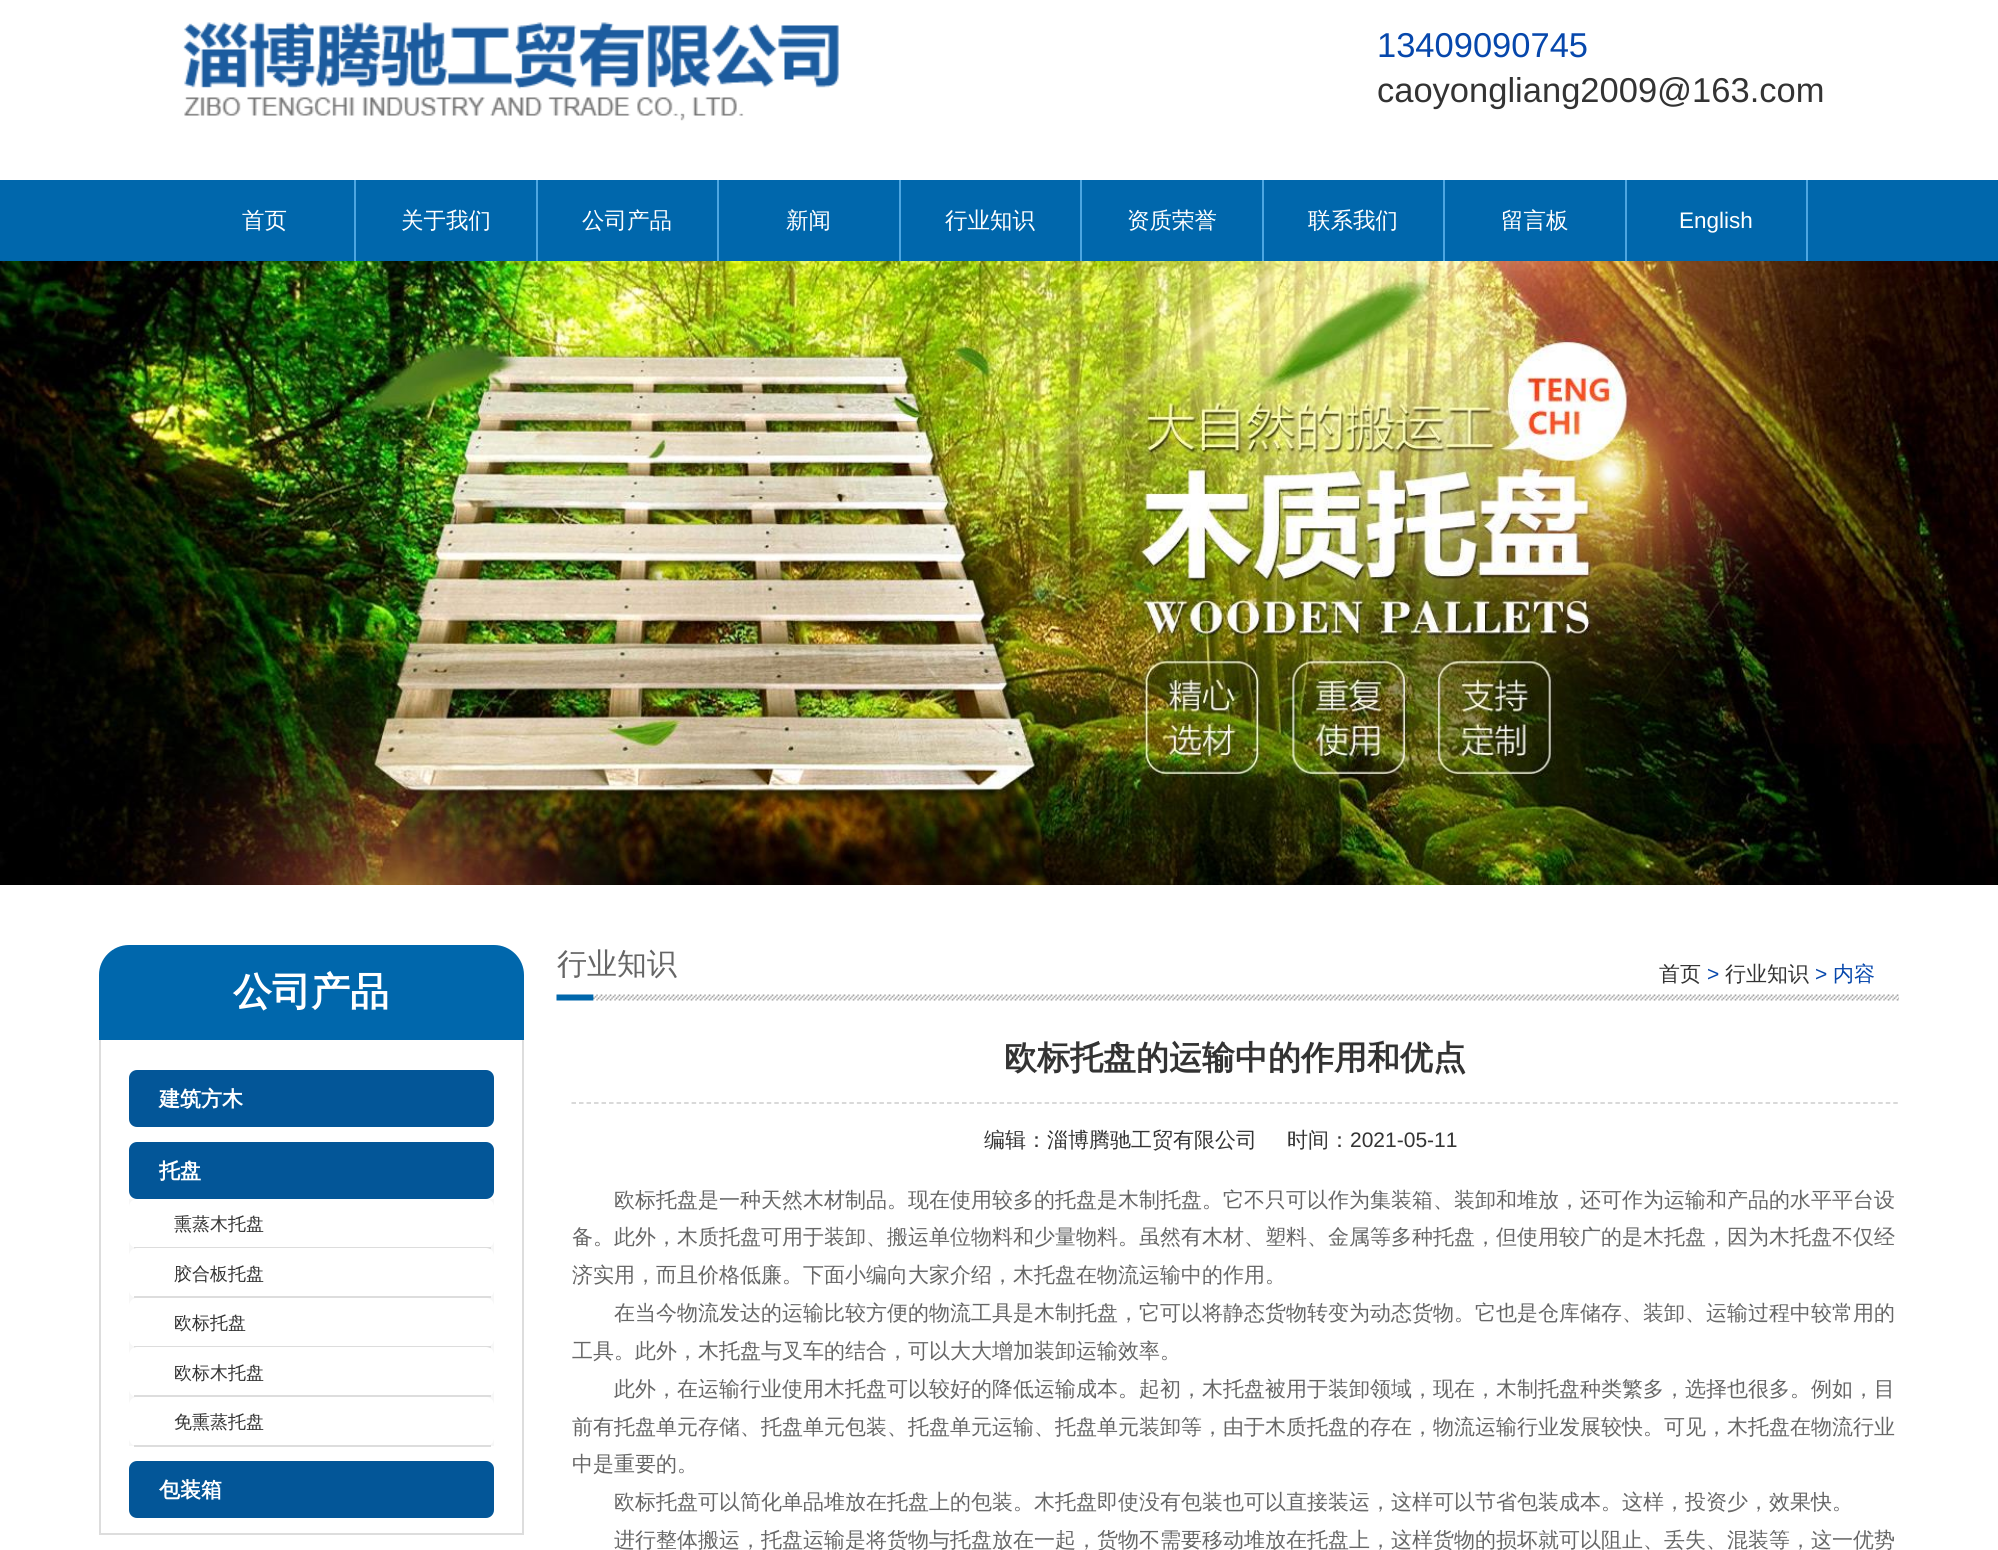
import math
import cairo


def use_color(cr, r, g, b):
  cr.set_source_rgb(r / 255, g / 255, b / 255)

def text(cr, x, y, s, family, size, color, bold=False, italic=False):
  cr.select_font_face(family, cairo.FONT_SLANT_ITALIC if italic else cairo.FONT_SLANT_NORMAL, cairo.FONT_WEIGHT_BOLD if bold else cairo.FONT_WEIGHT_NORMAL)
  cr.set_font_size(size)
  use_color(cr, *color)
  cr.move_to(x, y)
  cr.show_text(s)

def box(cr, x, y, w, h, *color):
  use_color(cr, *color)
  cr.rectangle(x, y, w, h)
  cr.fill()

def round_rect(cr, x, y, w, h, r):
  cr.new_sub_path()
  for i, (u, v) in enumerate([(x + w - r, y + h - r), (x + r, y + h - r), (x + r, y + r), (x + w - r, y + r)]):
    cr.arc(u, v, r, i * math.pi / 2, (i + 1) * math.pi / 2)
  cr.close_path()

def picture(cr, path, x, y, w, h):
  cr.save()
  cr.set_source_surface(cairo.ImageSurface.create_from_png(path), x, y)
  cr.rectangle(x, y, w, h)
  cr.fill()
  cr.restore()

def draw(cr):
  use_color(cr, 255, 255, 255)
  cr.paint()
  picture(cr, "img_01.png", 183, 22, 656, 99)
  box(cr, 0, 180, 1998, 81, 0, 103, 172)
  box(cr, 354, 180, 2, 81, 77, 166, 225)
  box(cr, 536, 180, 2, 81, 77, 166, 225)
  box(cr, 717, 180, 2, 81, 77, 166, 225)
  box(cr, 899, 180, 2, 81, 77, 166, 225)
  box(cr, 1080, 180, 2, 81, 77, 166, 225)
  box(cr, 1262, 180, 2, 81, 77, 166, 225)
  box(cr, 1443, 180, 2, 81, 77, 166, 225)
  box(cr, 1625, 180, 2, 81, 77, 166, 225)
  box(cr, 1806, 180, 2, 81, 77, 166, 225)
  picture(cr, "img_02.png", 0, 261, 1998, 624)
  use_color(cr, 0, 103, 172)
  cr.new_path()
  cr.move_to(129, 945)
  cr.line_to(494, 945)
  cr.curve_to(510.5, 945, 524, 958.5, 524, 975)
  cr.line_to(524, 1040)
  cr.line_to(99, 1040)
  cr.line_to(99, 975)
  cr.curve_to(99, 958.5, 112.5, 945, 129, 945)
  cr.close_path()
  cr.fill()
  box(cr, 522, 1040, 2, 495, 221, 221, 221)
  box(cr, 99, 1533, 425, 2, 221, 221, 221)
  box(cr, 99, 1040, 2, 495, 221, 221, 221)
  use_color(cr, 3, 86, 152)
  round_rect(cr, 129, 1070, 365, 57, 8)
  cr.fill()
  round_rect(cr, 129, 1142, 365, 57, 8)
  cr.fill()
  box(cr, 129, 1199, 365, 247, 247, 247, 247)
  use_color(cr, 255, 255, 255)
  round_rect(cr, 129, 1199, 365, 49, 8)
  cr.fill()
  box(cr, 134, 1247, 357, 2, 221, 221, 221)
  use_color(cr, 255, 255, 255)
  round_rect(cr, 129, 1248, 365, 50, 8)
  cr.fill()
  box(cr, 134, 1296, 357, 2, 221, 221, 221)
  use_color(cr, 255, 255, 255)
  round_rect(cr, 129, 1298, 365, 49, 8)
  cr.fill()
  box(cr, 134, 1346, 357, 2, 221, 221, 221)
  use_color(cr, 255, 255, 255)
  round_rect(cr, 129, 1347, 365, 50, 8)
  cr.fill()
  box(cr, 134, 1395, 357, 2, 221, 221, 221)
  use_color(cr, 255, 255, 255)
  round_rect(cr, 129, 1397, 365, 49, 8)
  cr.fill()
  box(cr, 134, 1445, 357, 2, 221, 221, 221)
  use_color(cr, 3, 86, 152)
  round_rect(cr, 129, 1461, 365, 57, 8)
  cr.fill()
  picture(cr, "img_03.png", 556, 994, 1343, 7)
  cr.new_path()
  cr.move_to(571.5, 1103)
  cr.line_to(1899, 1103)
  use_color(cr, 204, 204, 204)
  cr.set_line_width(1.5)
  cr.set_dash([4.5, 3.01])
  cr.stroke()
  text(cr, 1377, 57, "13409090745", "Liberation Sans", 34.5, (6, 71, 172))
  text(cr, 1377, 102, "caoyongliang2009@163.com", "Liberation Sans", 34.5, (51, 51, 51))
  text(cr, 242, 228, "首页", "WenQuanYi Zen Hei Medium", 22.5, (255, 255, 255))
  text(cr, 401, 228, "关于我们", "WenQuanYi Zen Hei Medium", 22.5, (255, 255, 255))
  text(cr, 582, 228, "公司产品", "WenQuanYi Zen Hei Medium", 22.5, (255, 255, 255))
  text(cr, 786, 228, "新闻", "WenQuanYi Zen Hei Medium", 22.5, (255, 255, 255))
  text(cr, 945, 228, "行业知识", "WenQuanYi Zen Hei Medium", 22.5, (255, 255, 255))
  text(cr, 1127, 228, "资质荣誉", "WenQuanYi Zen Hei Medium", 22.5, (255, 255, 255))
  text(cr, 1308, 228, "联系我们", "WenQuanYi Zen Hei Medium", 22.5, (255, 255, 255))
  text(cr, 1501, 228, "留言板", "WenQuanYi Zen Hei Medium", 22.5, (255, 255, 255))
  text(cr, 1679, 228, "English", "Liberation Sans", 22.5, (255, 255, 255))
  text(cr, 233, 1005, "公司产品", "WenQuanYi Zen Hei", 39, (255, 255, 255), bold=True)
  text(cr, 159, 1106, "建筑方木", "WenQuanYi Zen Hei", 21, (255, 255, 255), bold=True)
  text(cr, 159, 1178, "托盘", "WenQuanYi Zen Hei", 21, (255, 255, 255), bold=True)
  text(cr, 174, 1230, "熏蒸木托盘", "WenQuanYi Zen Hei Medium", 18, (51, 51, 51))
  text(cr, 174, 1280, "胶合板托盘", "WenQuanYi Zen Hei Medium", 18, (51, 51, 51))
  text(cr, 174, 1329, "欧标托盘", "WenQuanYi Zen Hei Medium", 18, (51, 51, 51))
  text(cr, 174, 1379, "欧标木托盘", "WenQuanYi Zen Hei Medium", 18, (51, 51, 51))
  text(cr, 174, 1428, "免熏蒸托盘", "WenQuanYi Zen Hei Medium", 18, (51, 51, 51))
  text(cr, 159, 1497, "包装箱", "WenQuanYi Zen Hei", 21, (255, 255, 255), bold=True)
  text(cr, 557, 974, "行业知识", "WenQuanYi Zen Hei Medium", 30, (102, 102, 102))
  text(cr, 1659, 981, "首页", "WenQuanYi Zen Hei Medium", 21, (51, 51, 51))
  text(cr, 1707, 981, ">", "Liberation Sans", 21, (6, 71, 172))
  text(cr, 1725, 981, "行业知识", "WenQuanYi Zen Hei Medium", 21, (51, 51, 51))
  text(cr, 1815, 981, ">", "Liberation Sans", 21, (6, 71, 172))
  text(cr, 1833, 981, "内容", "WenQuanYi Zen Hei Medium", 21, (6, 71, 172))
  text(cr, 1004, 1069, "欧标托盘的运输中的作用和优点", "WenQuanYi Zen Hei", 33, (51, 51, 51), bold=True)
  text(cr, 984, 1147, "编辑：淄博腾驰工贸有限公司", "WenQuanYi Zen Hei Medium", 21, (51, 51, 51))
  text(cr, 1287, 1147, "时间：", "WenQuanYi Zen Hei Medium", 21, (51, 51, 51))
  text(cr, 1350, 1147, "2021-05-11", "Liberation Sans", 21, (51, 51, 51))
  text(cr, 614, 1207, "欧标托盘是一种天然木材制品。现在使用较多的托盘是木制托盘。它不只可以作为集装箱、装卸和堆放，还可作为运输和产品的水平平台设", "WenQuanYi Zen Hei Medium", 21, (102, 102, 102))
  text(cr, 572, 1244, "备。此外，木质托盘可用于装卸、搬运单位物料和少量物料。虽然有木材、塑料、金属等多种托盘，但使用较广的是木托盘，因为木托盘不仅经", "WenQuanYi Zen Hei Medium", 21, (102, 102, 102))
  text(cr, 572, 1282, "济实用，而且价格低廉。下面小编向大家介绍，木托盘在物流运输中的作用。", "WenQuanYi Zen Hei Medium", 21, (102, 102, 102))
  text(cr, 614, 1320, "在当今物流发达的运输比较方便的物流工具是木制托盘，它可以将静态货物转变为动态货物。它也是仓库储存、装卸、运输过程中较常用的", "WenQuanYi Zen Hei Medium", 21, (102, 102, 102))
  text(cr, 572, 1358, "工具。此外，木托盘与叉车的结合，可以大大增加装卸运输效率。", "WenQuanYi Zen Hei Medium", 21, (102, 102, 102))
  text(cr, 614, 1396, "此外，在运输行业使用木托盘可以较好的降低运输成本。起初，木托盘被用于装卸领域，现在，木制托盘种类繁多，选择也很多。例如，目", "WenQuanYi Zen Hei Medium", 21, (102, 102, 102))
  text(cr, 572, 1434, "前有托盘单元存储、托盘单元包装、托盘单元运输、托盘单元装卸等，由于木质托盘的存在，物流运输行业发展较快。可见，木托盘在物流行业", "WenQuanYi Zen Hei Medium", 21, (102, 102, 102))
  text(cr, 572, 1471, "中是重要的。", "WenQuanYi Zen Hei Medium", 21, (102, 102, 102))
  text(cr, 614, 1509, "欧标托盘可以简化单品堆放在托盘上的包装。木托盘即使没有包装也可以直接装运，这样可以节省包装成本。这样，投资少，效果快。", "WenQuanYi Zen Hei Medium", 21, (102, 102, 102))
  text(cr, 614, 1547, "进行整体搬运，托盘运输是将货物与托盘放在一起，货物不需要移动堆放在托盘上，这样货物的损坏就可以阻止、丢失、混装等，这一优势", "WenQuanYi Zen Hei Medium", 21, (102, 102, 102))


surface = cairo.ImageSurface(cairo.FORMAT_RGB24, 1998, 1550)
cr = cairo.Context(surface)
options = cairo.FontOptions()
options.set_hint_metrics(cairo.HINT_METRICS_OFF)
options.set_hint_style(cairo.HINT_STYLE_NONE)
cr.set_font_options(options)
cr.set_miter_limit(4)
draw(cr)
surface.write_to_png("out.png")
